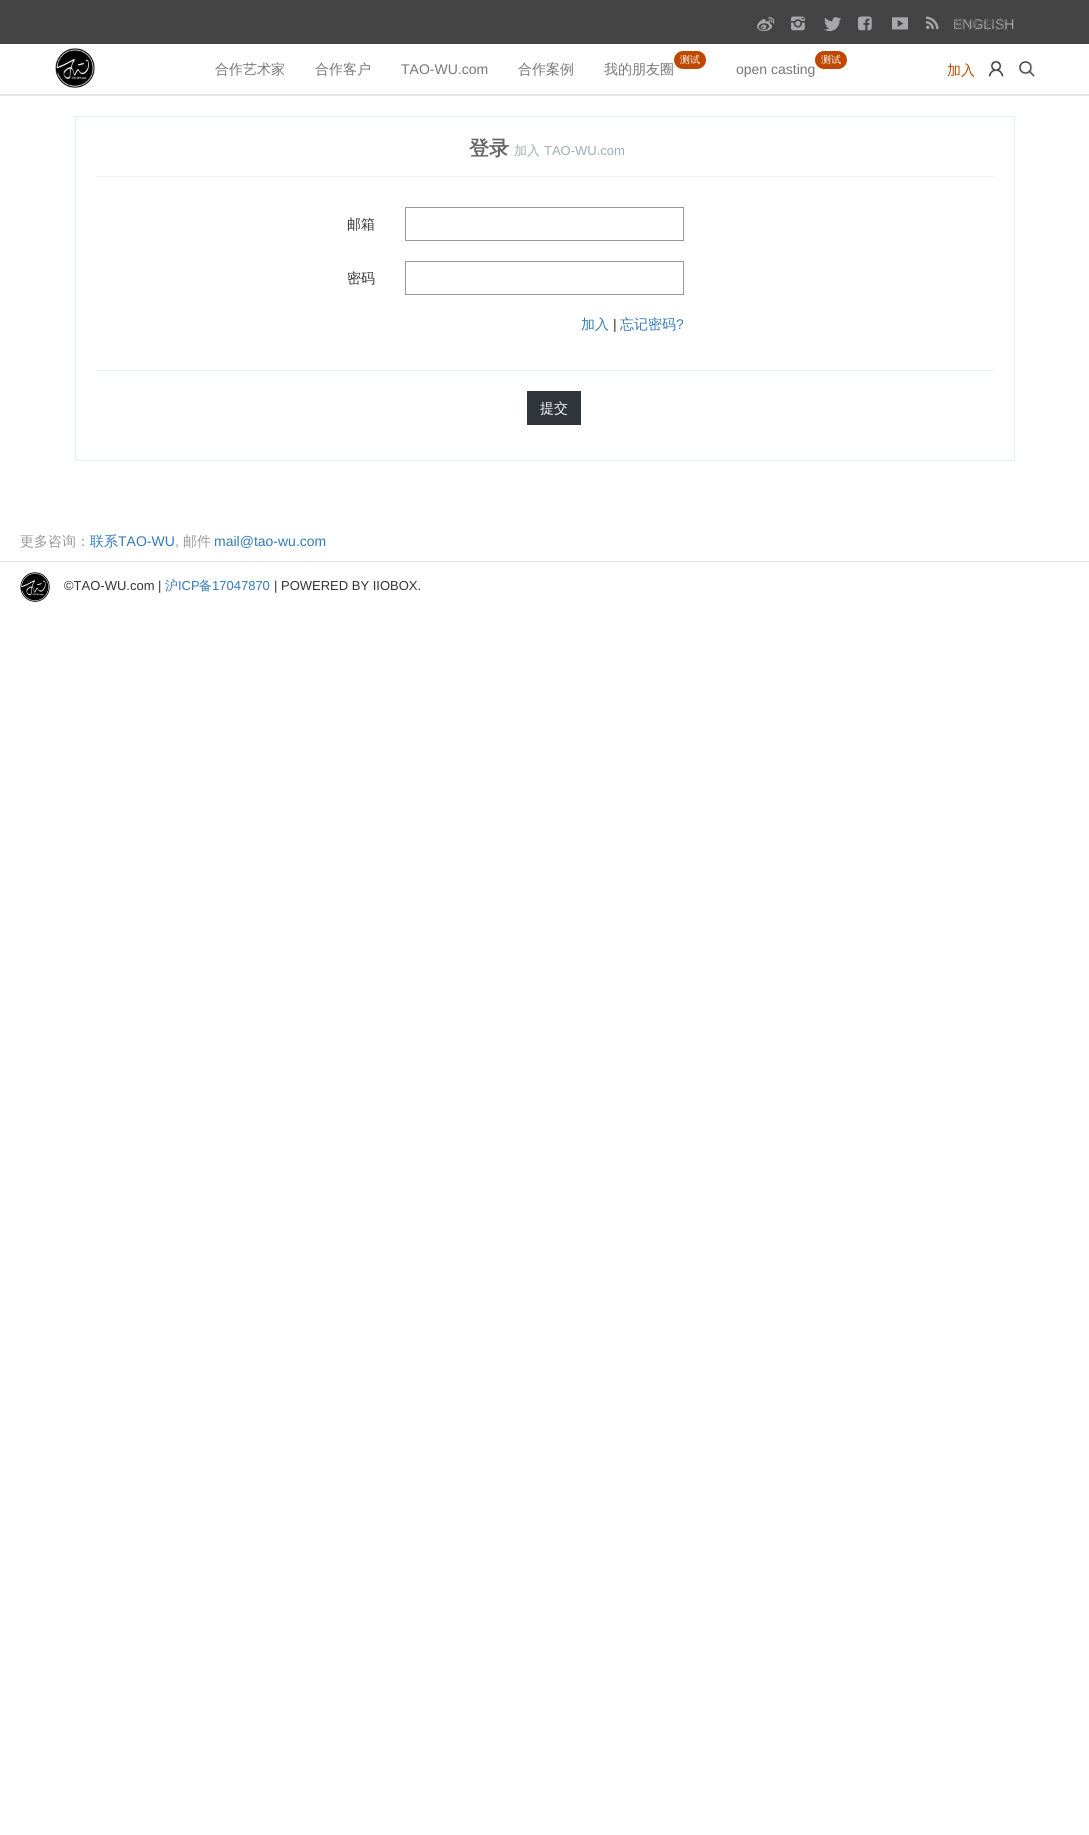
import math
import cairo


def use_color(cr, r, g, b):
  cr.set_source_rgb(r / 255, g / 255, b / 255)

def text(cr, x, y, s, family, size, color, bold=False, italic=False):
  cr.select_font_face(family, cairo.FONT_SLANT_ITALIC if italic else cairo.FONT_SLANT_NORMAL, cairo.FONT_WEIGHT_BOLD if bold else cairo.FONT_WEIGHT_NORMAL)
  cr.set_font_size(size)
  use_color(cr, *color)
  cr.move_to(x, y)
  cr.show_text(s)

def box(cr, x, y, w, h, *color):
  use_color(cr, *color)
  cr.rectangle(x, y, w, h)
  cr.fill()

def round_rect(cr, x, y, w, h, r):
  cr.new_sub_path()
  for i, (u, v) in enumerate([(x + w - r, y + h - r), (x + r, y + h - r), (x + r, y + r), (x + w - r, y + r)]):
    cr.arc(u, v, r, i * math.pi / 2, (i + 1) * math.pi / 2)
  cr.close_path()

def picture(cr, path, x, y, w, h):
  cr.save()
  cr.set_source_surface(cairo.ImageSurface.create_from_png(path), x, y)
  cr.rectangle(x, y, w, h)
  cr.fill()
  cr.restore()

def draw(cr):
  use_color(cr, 255, 255, 255)
  cr.paint()
  box(cr, 0, 0, 1089, 44, 68, 68, 68)
  picture(cr, "img_01.png", 757, 17, 18, 15)
  picture(cr, "img_02.png", 791, 16, 14, 15)
  picture(cr, "img_03.png", 824, 17, 17, 15)
  picture(cr, "img_04.png", 858, 16, 14, 15)
  picture(cr, "img_05.png", 892, 17, 16, 13)
  picture(cr, "img_06.png", 926, 16, 13, 14)
  box(cr, 0, 94, 1089, 2, 230, 230, 230)
  picture(cr, "img_07.png", 55, 48, 40, 40)
  use_color(cr, 191, 72, 0)
  round_rect(cr, 674, 51, 32, 18, 9)
  cr.fill()
  round_rect(cr, 815, 51, 32, 18, 9)
  cr.fill()
  picture(cr, "img_08.png", 988, 60, 16, 17)
  picture(cr, "img_09.png", 1019, 61, 16, 16)
  cr.rectangle(75.5, 116.5, 939, 344)
  use_color(cr, 231, 236, 241)
  cr.set_line_width(1)
  cr.stroke()
  box(cr, 96, 176, 898, 1, 238, 241, 245)
  cr.rectangle(405.5, 207.5, 278, 33)
  use_color(cr, 153, 153, 153)
  cr.stroke()
  cr.rectangle(405.5, 261.5, 278, 33)
  cr.stroke()
  box(cr, 96, 370, 898, 1, 231, 236, 241)
  box(cr, 527, 391, 54, 34, 47, 53, 59)
  box(cr, 0, 561, 1089, 1, 230, 230, 230)
  picture(cr, "img_10.png", 20, 572, 30, 30)
  text(cr, 953, 29, "ENGLISH", "Liberation Sans", 14, (168, 168, 170))
  text(cr, 953, 29, "简体中文", "WenQuanYi Zen Hei Medium", 14, (95, 95, 96))
  text(cr, 215, 74, "合作艺术家", "WenQuanYi Zen Hei Medium", 14, (119, 119, 119))
  text(cr, 315, 74, "合作客户", "WenQuanYi Zen Hei Medium", 14, (119, 119, 119))
  text(cr, 401, 74, "TAO-WU.com", "Liberation Sans", 14, (119, 119, 119))
  text(cr, 518, 74, "合作案例", "WenQuanYi Zen Hei Medium", 14, (119, 119, 119))
  text(cr, 680, 63, "测试", "WenQuanYi Zen Hei Medium", 10, (255, 255, 255))
  text(cr, 604, 74, "我的朋友圈", "WenQuanYi Zen Hei Medium", 14, (119, 119, 119))
  text(cr, 821, 63, "测试", "WenQuanYi Zen Hei Medium", 10, (255, 255, 255))
  text(cr, 736, 74, "open casting", "Liberation Sans", 14, (119, 119, 119))
  text(cr, 947, 75, "加入", "WenQuanYi Zen Hei Medium", 14, (191, 72, 0))
  text(cr, 469, 155, "登录", "WenQuanYi Zen Hei", 20, (102, 102, 102), bold=True)
  text(cr, 514, 155, "加入", "WenQuanYi Zen Hei Medium", 13, (158, 172, 180))
  text(cr, 544, 155, "TAO-WU.com", "Liberation Sans", 13, (158, 172, 180))
  text(cr, 347, 229, "邮箱", "WenQuanYi Zen Hei Medium", 14, (51, 51, 51))
  text(cr, 347, 283, "密码", "WenQuanYi Zen Hei Medium", 14, (51, 51, 51))
  text(cr, 581, 329, "加入", "WenQuanYi Zen Hei Medium", 14, (51, 122, 183))
  text(cr, 613, 329, "|", "Liberation Sans", 14, (51, 51, 51))
  text(cr, 620, 329, "忘记密码", "WenQuanYi Zen Hei Medium", 14, (51, 122, 183))
  text(cr, 676, 329, "?", "Liberation Sans", 14, (51, 122, 183))
  text(cr, 540, 413, "提交", "WenQuanYi Zen Hei Medium", 14, (255, 255, 255))
  text(cr, 20, 546, "更多咨询：", "WenQuanYi Zen Hei Medium", 14, (153, 153, 153))
  text(cr, 90, 546, "联系", "WenQuanYi Zen Hei Medium", 14, (51, 122, 183))
  text(cr, 118, 546, "TAO-WU", "Liberation Sans", 14, (51, 122, 183))
  text(cr, 175, 546, ",", "Liberation Sans", 14, (153, 153, 153))
  text(cr, 183, 546, "邮件", "WenQuanYi Zen Hei Medium", 14, (153, 153, 153))
  text(cr, 214, 546, "mail@tao-wu.com", "Liberation Sans", 14, (51, 122, 183))
  text(cr, 64, 590, "©TAO-WU.com |", "Liberation Sans", 13, (51, 51, 51))
  text(cr, 165, 590, "沪", "WenQuanYi Zen Hei Medium", 13, (51, 122, 183))
  text(cr, 178, 590, "ICP", "Liberation Sans", 13, (51, 122, 183))
  text(cr, 199, 590, "备", "WenQuanYi Zen Hei Medium", 13, (51, 122, 183))
  text(cr, 212, 590, "17047870", "Liberation Sans", 13, (51, 122, 183))
  text(cr, 274, 590, "| POWERED BY IIOBOX.", "Liberation Sans", 13, (51, 51, 51))


surface = cairo.ImageSurface(cairo.FORMAT_RGB24, 1089, 1835)
cr = cairo.Context(surface)
options = cairo.FontOptions()
options.set_hint_metrics(cairo.HINT_METRICS_OFF)
options.set_hint_style(cairo.HINT_STYLE_NONE)
cr.set_font_options(options)
cr.set_miter_limit(4)
draw(cr)
surface.write_to_png("out.png")
